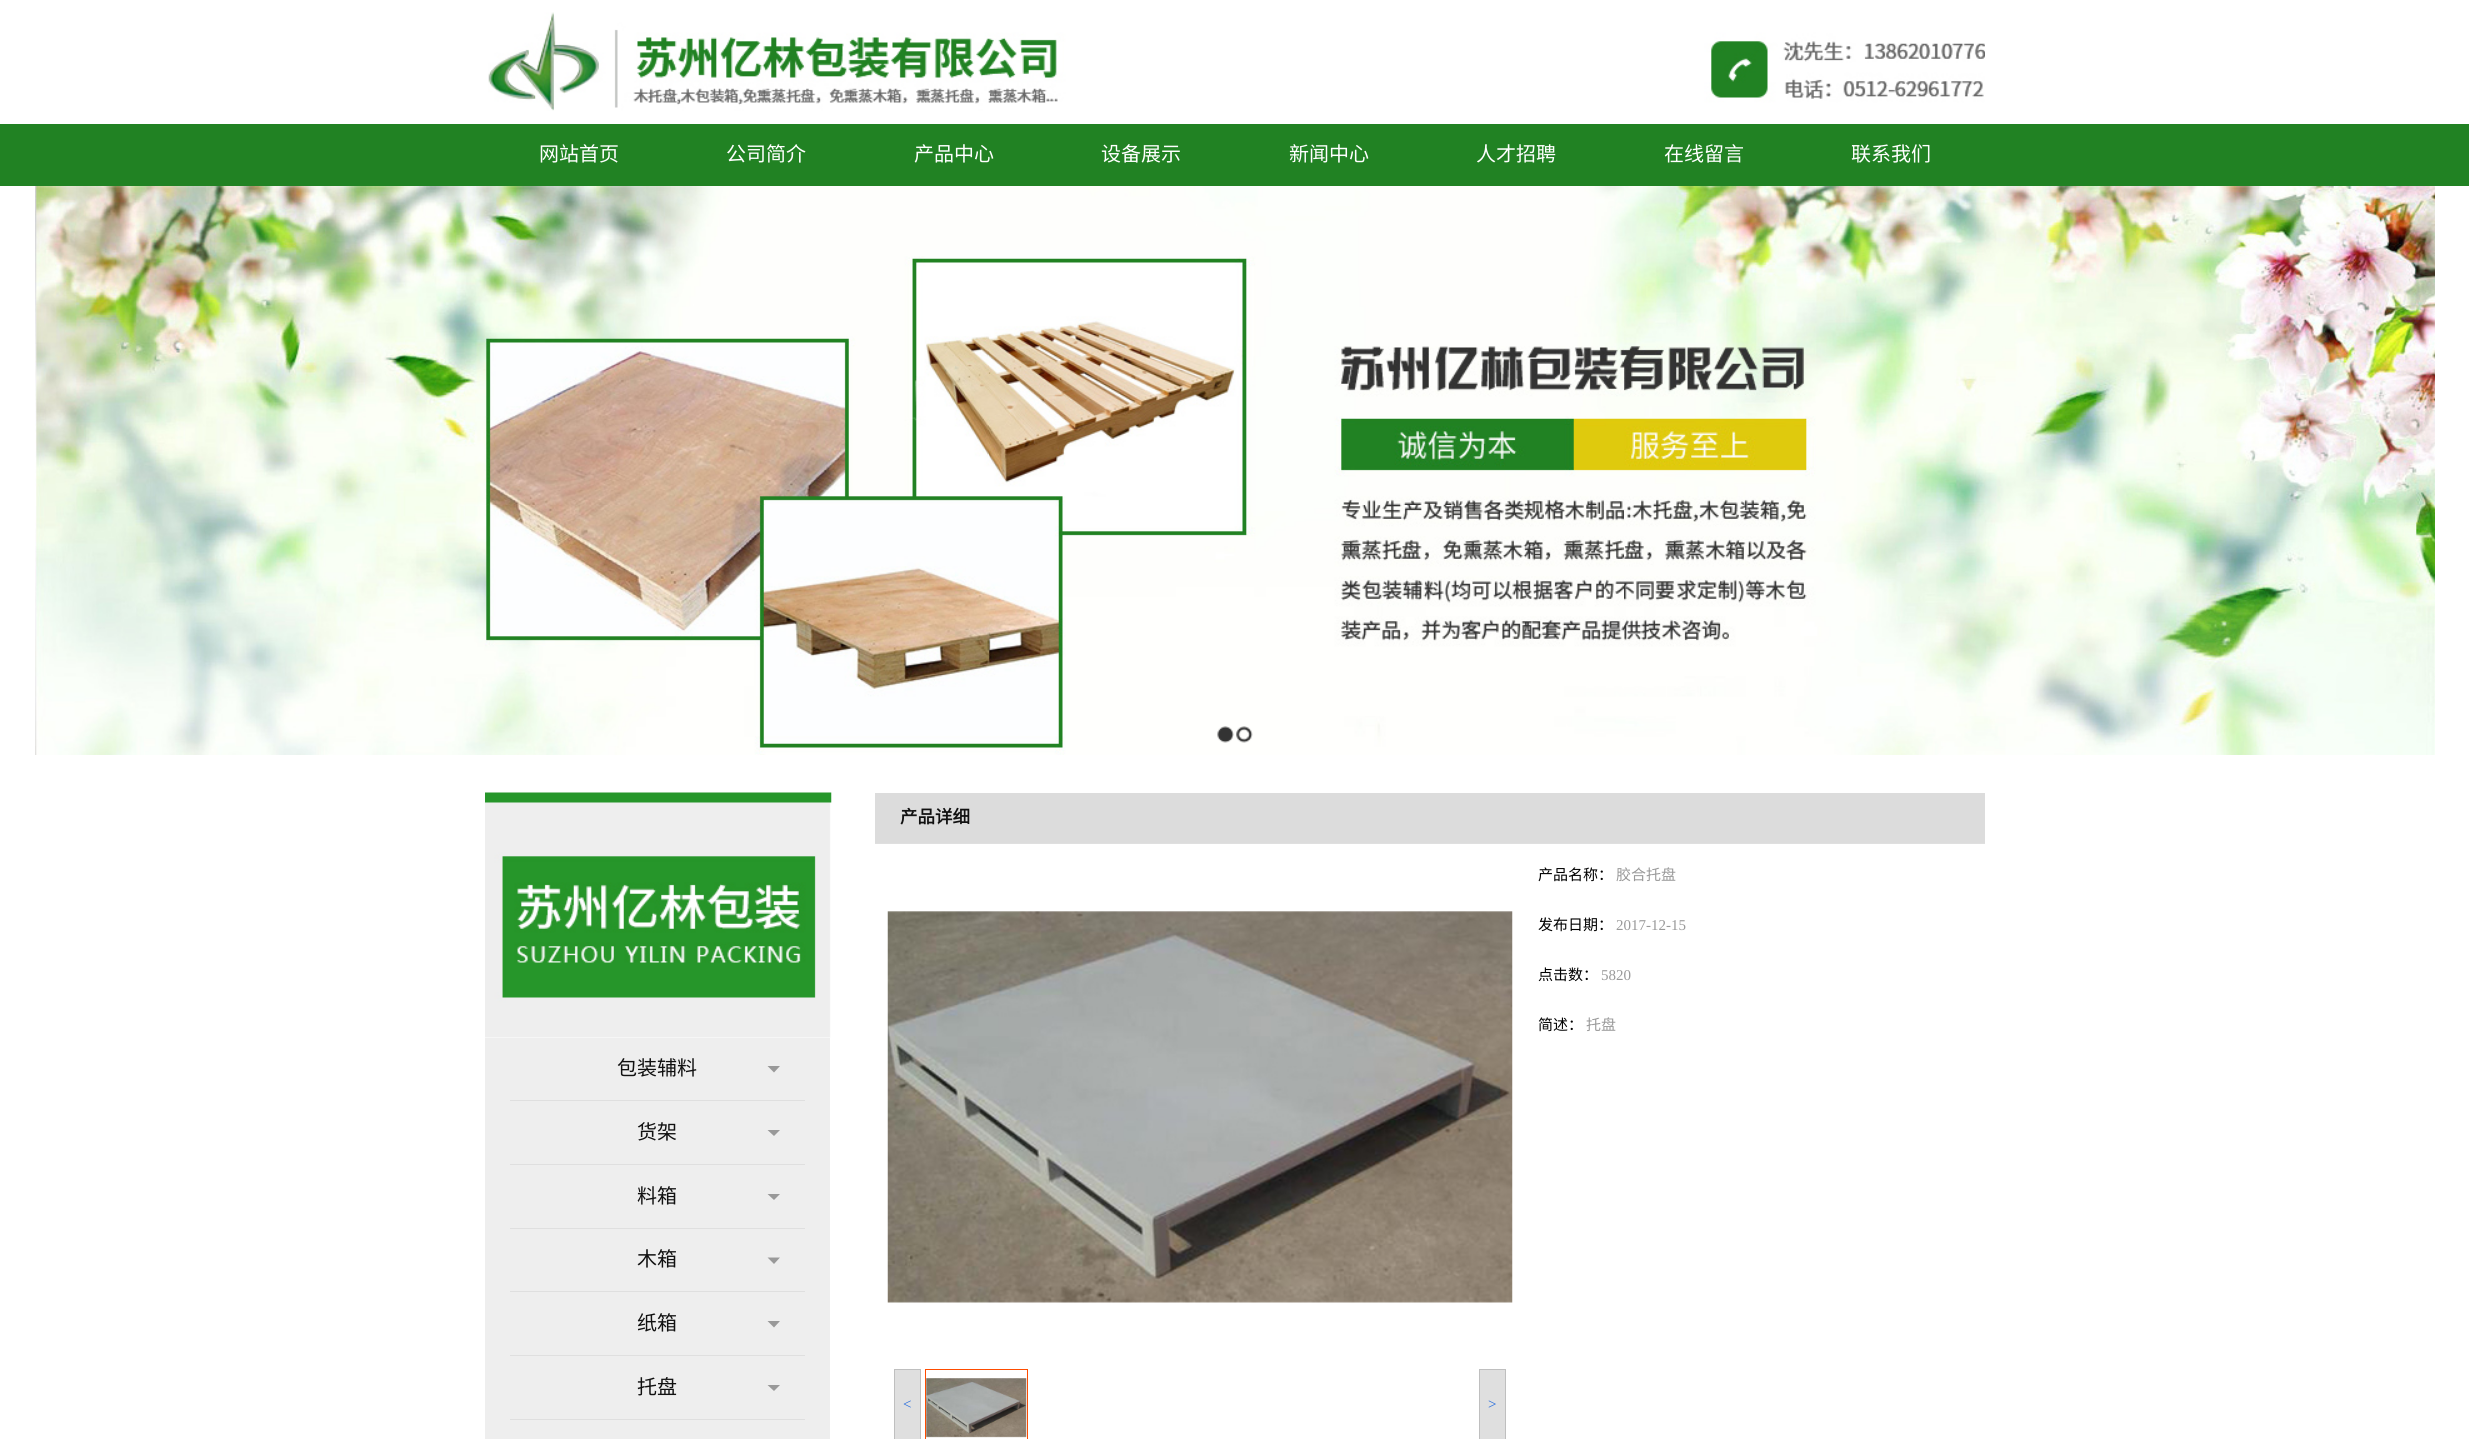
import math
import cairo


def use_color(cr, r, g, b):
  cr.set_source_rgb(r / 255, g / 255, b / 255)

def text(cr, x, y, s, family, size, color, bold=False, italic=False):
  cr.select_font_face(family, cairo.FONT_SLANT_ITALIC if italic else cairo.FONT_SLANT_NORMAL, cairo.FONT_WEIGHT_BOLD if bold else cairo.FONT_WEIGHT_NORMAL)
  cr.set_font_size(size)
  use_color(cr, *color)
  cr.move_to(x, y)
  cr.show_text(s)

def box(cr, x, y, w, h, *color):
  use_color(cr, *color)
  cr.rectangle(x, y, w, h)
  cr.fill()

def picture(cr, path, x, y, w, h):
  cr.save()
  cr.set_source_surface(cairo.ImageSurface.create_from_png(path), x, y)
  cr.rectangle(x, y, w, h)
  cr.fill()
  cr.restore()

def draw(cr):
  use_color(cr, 255, 255, 255)
  cr.paint()
  picture(cr, "img_01.png", 488, 12, 1497, 99)
  box(cr, 0, 124, 2469, 62, 33, 130, 35)
  picture(cr, "img_02.png", 35, 186, 2400, 569)
  picture(cr, "img_03.png", 1217, 726, 17, 17)
  picture(cr, "img_04.png", 1236, 726, 17, 17)
  picture(cr, "img_05.png", 485, 792, 347, 246)
  box(cr, 485, 1038, 345, 401, 238, 238, 238)
  box(cr, 510, 1100, 295, 1, 223, 223, 223)
  use_color(cr, 153, 153, 153)
  cr.new_path()
  cr.move_to(767.5, 1066)
  cr.line_to(780, 1066)
  cr.line_to(774, 1072.5)
  cr.close_path()
  cr.fill()
  box(cr, 510, 1164, 295, 1, 223, 223, 223)
  use_color(cr, 153, 153, 153)
  cr.new_path()
  cr.move_to(767.5, 1130)
  cr.line_to(780, 1130)
  cr.line_to(774, 1136)
  cr.close_path()
  cr.fill()
  box(cr, 510, 1228, 295, 1, 223, 223, 223)
  use_color(cr, 153, 153, 153)
  cr.new_path()
  cr.move_to(767.5, 1194)
  cr.line_to(780, 1194)
  cr.line_to(774, 1200)
  cr.close_path()
  cr.fill()
  box(cr, 510, 1291, 295, 1, 223, 223, 223)
  use_color(cr, 153, 153, 153)
  cr.new_path()
  cr.move_to(767.5, 1257.5)
  cr.line_to(780, 1257.5)
  cr.line_to(774, 1264)
  cr.close_path()
  cr.fill()
  box(cr, 510, 1355, 295, 1, 223, 223, 223)
  use_color(cr, 153, 153, 153)
  cr.new_path()
  cr.move_to(767.5, 1321)
  cr.line_to(780, 1321)
  cr.line_to(774, 1327.5)
  cr.close_path()
  cr.fill()
  box(cr, 510, 1419, 295, 1, 223, 223, 223)
  use_color(cr, 153, 153, 153)
  cr.new_path()
  cr.move_to(767.5, 1385)
  cr.line_to(780, 1385)
  cr.line_to(774, 1391)
  cr.close_path()
  cr.fill()
  box(cr, 875, 793, 1110, 50, 220, 220, 220)
  box(cr, 875, 843, 1110, 1, 223, 223, 223)
  picture(cr, "img_06.png", 887, 911, 626, 392)
  cr.rectangle(894.5, 1369.5, 26, 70)
  cr.fill_preserve()
  use_color(cr, 191, 191, 191)
  cr.set_line_width(1)
  cr.stroke()
  cr.rectangle(925.5, 1369.5, 102, 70)
  use_color(cr, 255, 76, 0)
  cr.stroke()
  picture(cr, "img_07.png", 926, 1378, 101, 60)
  use_color(cr, 223, 223, 223)
  cr.rectangle(1479.5, 1369.5, 26, 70)
  cr.fill_preserve()
  use_color(cr, 191, 191, 191)
  cr.stroke()
  text(cr, 539, 161, "网站首页", "Noto Sans CJK SC", 20, (255, 255, 255))
  text(cr, 726, 161, "公司简介", "Noto Sans CJK SC", 20, (255, 255, 255))
  text(cr, 914, 161, "产品中心", "Noto Sans CJK SC", 20, (255, 255, 255))
  text(cr, 1101, 161, "设备展示", "Noto Sans CJK SC", 20, (255, 255, 255))
  text(cr, 1289, 161, "新闻中心", "Noto Sans CJK SC", 20, (255, 255, 255))
  text(cr, 1476, 161, "人才招聘", "Noto Sans CJK SC", 20, (255, 255, 255))
  text(cr, 1664, 161, "在线留言", "Noto Sans CJK SC", 20, (255, 255, 255))
  text(cr, 1851, 161, "联系我们", "Noto Sans CJK SC", 20, (255, 255, 255))
  text(cr, 617, 1075, "包装辅料", "Noto Sans CJK SC", 20, (17, 17, 17))
  text(cr, 637, 1139, "货架", "Noto Sans CJK SC", 20, (17, 17, 17))
  text(cr, 637, 1203, "料箱", "Noto Sans CJK SC", 20, (17, 17, 17))
  text(cr, 637, 1266, "木箱", "Noto Sans CJK SC", 20, (17, 17, 17))
  text(cr, 637, 1330, "纸箱", "Noto Sans CJK SC", 20, (17, 17, 17))
  text(cr, 637, 1394, "托盘", "Noto Sans CJK SC", 20, (17, 17, 17))
  text(cr, 900, 823, "产品详细", "Noto Sans CJK SC", 17.5, (17, 17, 17), bold=True)
  text(cr, 1538, 880, "产品名称：", "Noto Sans CJK SC", 15, (0, 0, 0))
  text(cr, 1616, 880, "胶合托盘", "Noto Sans CJK SC", 15, (153, 153, 153))
  text(cr, 1538, 930, "发布日期：", "Noto Sans CJK SC", 15, (0, 0, 0))
  text(cr, 1616, 930, "2017-12-15", "Liberation Serif", 15, (153, 153, 153))
  text(cr, 1538, 980, "点击数：", "Noto Sans CJK SC", 15, (0, 0, 0))
  text(cr, 1601, 980, "5820", "Liberation Serif", 15, (153, 153, 153))
  text(cr, 1538, 1030, "简述：", "Noto Sans CJK SC", 15, (0, 0, 0))
  text(cr, 1586, 1030, "托盘", "Noto Sans CJK SC", 15, (153, 153, 153))
  text(cr, 903, 1409, "<", "Liberation Serif", 15, (32, 104, 220))
  text(cr, 1488, 1409, ">", "Liberation Serif", 15, (32, 104, 220))


surface = cairo.ImageSurface(cairo.FORMAT_RGB24, 2469, 1439)
cr = cairo.Context(surface)
options = cairo.FontOptions()
options.set_hint_metrics(cairo.HINT_METRICS_OFF)
options.set_hint_style(cairo.HINT_STYLE_NONE)
cr.set_font_options(options)
cr.set_miter_limit(4)
draw(cr)
surface.write_to_png("out.png")
